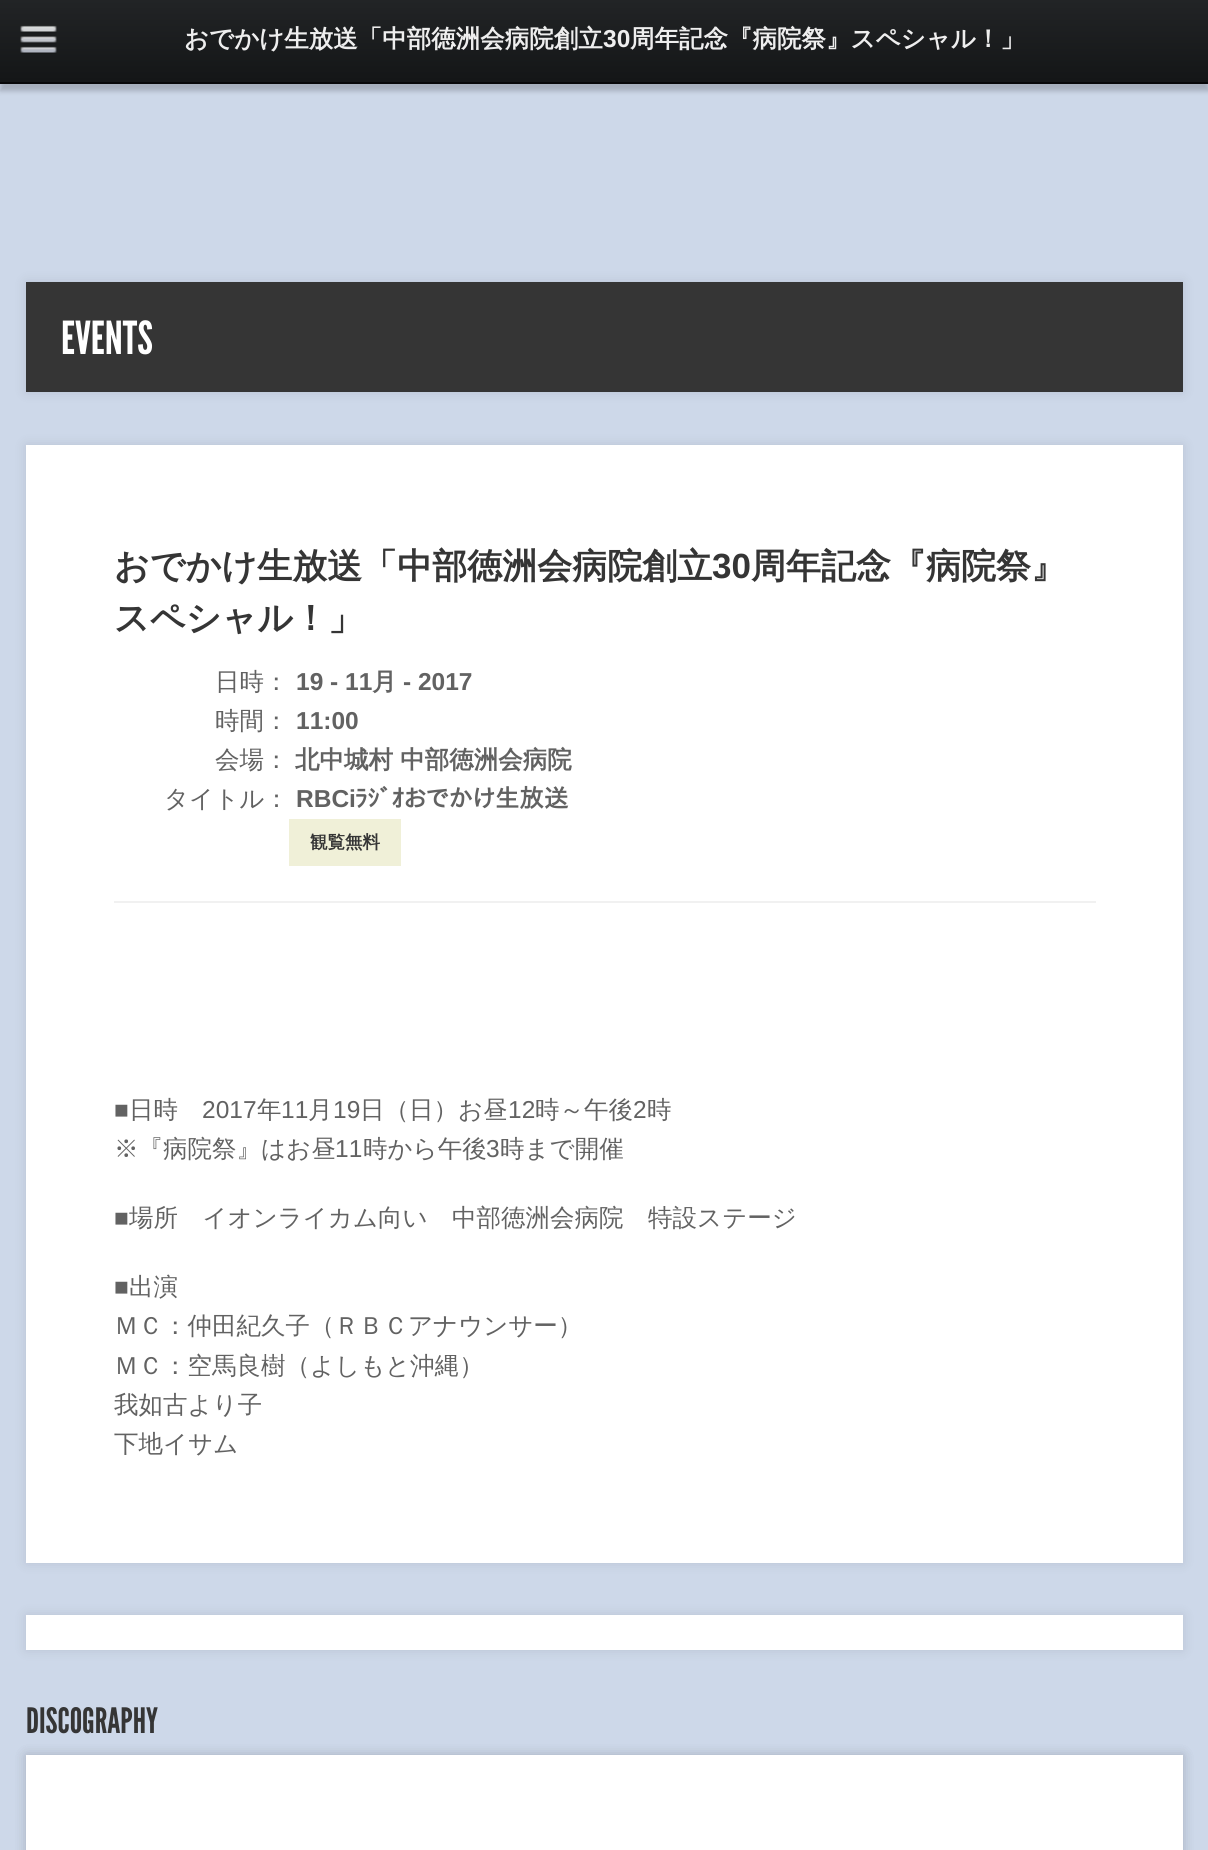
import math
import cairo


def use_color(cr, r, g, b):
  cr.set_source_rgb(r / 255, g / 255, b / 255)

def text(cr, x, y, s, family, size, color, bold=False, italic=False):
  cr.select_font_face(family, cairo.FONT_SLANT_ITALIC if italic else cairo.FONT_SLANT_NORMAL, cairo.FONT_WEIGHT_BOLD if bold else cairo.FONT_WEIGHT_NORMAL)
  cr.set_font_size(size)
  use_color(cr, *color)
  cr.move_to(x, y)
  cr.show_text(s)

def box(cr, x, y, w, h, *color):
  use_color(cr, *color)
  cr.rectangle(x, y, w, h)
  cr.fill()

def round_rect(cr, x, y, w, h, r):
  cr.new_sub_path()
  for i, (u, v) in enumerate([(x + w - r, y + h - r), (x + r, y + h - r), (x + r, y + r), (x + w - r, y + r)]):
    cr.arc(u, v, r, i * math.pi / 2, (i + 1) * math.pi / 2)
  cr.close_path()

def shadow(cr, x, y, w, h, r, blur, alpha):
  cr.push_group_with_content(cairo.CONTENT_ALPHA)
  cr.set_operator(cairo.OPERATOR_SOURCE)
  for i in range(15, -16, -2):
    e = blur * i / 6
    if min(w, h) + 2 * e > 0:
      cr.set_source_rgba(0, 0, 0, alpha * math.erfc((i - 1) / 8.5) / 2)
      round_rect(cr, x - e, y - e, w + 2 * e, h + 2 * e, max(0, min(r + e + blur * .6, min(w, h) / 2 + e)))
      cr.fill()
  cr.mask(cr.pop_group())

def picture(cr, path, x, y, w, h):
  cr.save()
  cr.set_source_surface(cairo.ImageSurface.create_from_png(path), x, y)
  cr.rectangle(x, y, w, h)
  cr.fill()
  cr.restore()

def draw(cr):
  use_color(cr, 205, 216, 233)
  cr.paint()
  use_color(cr, 0, 0, 0)
  shadow(cr, 0, 7, 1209, 84, 0, 2.5, 0.2)
  gradient = cairo.LinearGradient(0, 82, 0, 0)
  gradient.add_color_stop_rgba(0.01, 0.078, 0.086, 0.09, 1)
  gradient.add_color_stop_rgba(1, 0.133, 0.141, 0.149, 1)
  cr.set_source(gradient)
  cr.rectangle(0, 0, 1208, 82)
  cr.fill()
  box(cr, 0, 82, 1208, 2, 7, 7, 8)
  picture(cr, "img_01.png", 20, 25, 37, 29)
  use_color(cr, 0, 0, 0)
  shadow(cr, 26, 282, 1157, 110, 0, 6, 0.1)
  box(cr, 26, 282, 1157, 110, 53, 53, 53)
  use_color(cr, 0, 0, 0)
  shadow(cr, 26, 445, 1157, 1118, 0, 6, 0.1)
  box(cr, 26, 445, 1157, 1118, 255, 255, 255)
  box(cr, 114, 901, 982, 2, 241, 241, 241)
  box(cr, 289, 819, 112, 47, 240, 240, 216)
  use_color(cr, 0, 0, 0)
  shadow(cr, 26, 1615, 1157, 35, 0, 6, 0.1)
  box(cr, 26, 1615, 1157, 35, 255, 255, 255)
  use_color(cr, 0, 0, 0)
  shadow(cr, 26, 1755, 1157, 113, 0, 6, 0.1)
  shadow(cr, 26, 1755, 1157, 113, 0, 6, 0.1)
  box(cr, 26, 1755, 1157, 95, 255, 255, 255)
  text(cr, 184, 47, "おでかけ生放送「中部徳洲会病院創立", "WenQuanYi Zen Hei", 24.5, (238, 238, 238), bold=True)
  text(cr, 603, 47, "30", "Liberation Sans", 24.5, (238, 238, 238), bold=True)
  text(cr, 630, 47, "周年記念『病院祭』スペシャル！」", "WenQuanYi Zen Hei", 24.5, (238, 238, 238), bold=True)
  text(cr, 61, 354, "EVENTS", "League Gothic", 45.5, (255, 255, 255))
  text(cr, 114, 578, "おでかけ生放送「中部徳洲会病院創立", "WenQuanYi Zen Hei", 35, (53, 53, 53), bold=True)
  text(cr, 712, 578, "30", "Liberation Sans", 35, (53, 53, 53), bold=True)
  text(cr, 751, 578, "周年記念『病院祭』", "WenQuanYi Zen Hei", 35, (53, 53, 53), bold=True)
  text(cr, 114, 630, "スペシャル！」", "WenQuanYi Zen Hei", 35, (53, 53, 53), bold=True)
  text(cr, 215, 690, "日時：", "WenQuanYi Zen Hei Medium", 24.5, (98, 98, 98))
  text(cr, 296, 690, "19 - 11", "Liberation Sans", 24.5, (98, 98, 98), bold=True)
  text(cr, 372, 690, "月", "WenQuanYi Zen Hei", 24.5, (98, 98, 98), bold=True)
  text(cr, 403, 690, "- 2017", "Liberation Sans", 24.5, (98, 98, 98), bold=True)
  text(cr, 215, 729, "時間：", "WenQuanYi Zen Hei Medium", 24.5, (98, 98, 98))
  text(cr, 296, 729, "11:00", "Liberation Sans", 24.5, (98, 98, 98), bold=True)
  text(cr, 215, 768, "会場：", "WenQuanYi Zen Hei Medium", 24.5, (98, 98, 98))
  text(cr, 295, 768, "北中城村 中部徳洲会病院", "WenQuanYi Zen Hei", 24.5, (98, 98, 98), bold=True)
  text(cr, 164, 807, "タイトル：", "WenQuanYi Zen Hei Medium", 24.5, (98, 98, 98))
  text(cr, 296, 807, "RBCi", "Liberation Sans", 24.5, (98, 98, 98), bold=True)
  text(cr, 355, 807, "ﾗｼﾞｵおでかけ生放送", "IPAPGothic", 24.5, (98, 98, 98), bold=True)
  text(cr, 310, 848, "観覧無料", "WenQuanYi Zen Hei", 17.5, (53, 53, 53), bold=True)
  text(cr, 114, 1118, "■", "Liberation Sans", 24.5, (98, 98, 98))
  text(cr, 129, 1118, "日時", "WenQuanYi Zen Hei Medium", 24.5, (98, 98, 98))
  text(cr, 202, 1118, "2017", "Liberation Sans", 24.5, (98, 98, 98))
  text(cr, 257, 1118, "年", "WenQuanYi Zen Hei Medium", 24.5, (98, 98, 98))
  text(cr, 281, 1118, "11", "Liberation Sans", 24.5, (98, 98, 98))
  text(cr, 308, 1118, "月", "WenQuanYi Zen Hei Medium", 24.5, (98, 98, 98))
  text(cr, 333, 1118, "19", "Liberation Sans", 24.5, (98, 98, 98))
  text(cr, 360, 1118, "日（日）お昼", "WenQuanYi Zen Hei Medium", 24.5, (98, 98, 98))
  text(cr, 508, 1118, "12", "Liberation Sans", 24.5, (98, 98, 98))
  text(cr, 535, 1118, "時～午後", "WenQuanYi Zen Hei Medium", 24.5, (98, 98, 98))
  text(cr, 633, 1118, "2", "Liberation Sans", 24.5, (98, 98, 98))
  text(cr, 647, 1118, "時", "WenQuanYi Zen Hei Medium", 24.5, (98, 98, 98))
  text(cr, 114, 1157, "※『病院祭』はお昼", "WenQuanYi Zen Hei Medium", 24.5, (98, 98, 98))
  text(cr, 335, 1157, "11", "Liberation Sans", 24.5, (98, 98, 98))
  text(cr, 363, 1157, "時から午後", "WenQuanYi Zen Hei Medium", 24.5, (98, 98, 98))
  text(cr, 486, 1157, "3", "Liberation Sans", 24.5, (98, 98, 98))
  text(cr, 500, 1157, "時まで開催", "WenQuanYi Zen Hei Medium", 24.5, (98, 98, 98))
  text(cr, 114, 1226, "■", "Liberation Sans", 24.5, (98, 98, 98))
  text(cr, 129, 1226, "場所　イオンライカム向い　中部徳洲会病院　特設ステージ", "WenQuanYi Zen Hei Medium", 24.5, (98, 98, 98))
  text(cr, 114, 1295, "■", "Liberation Sans", 24.5, (98, 98, 98))
  text(cr, 129, 1295, "出演", "WenQuanYi Zen Hei Medium", 24.5, (98, 98, 98))
  text(cr, 114, 1334, "ＭＣ：仲田紀久子（ＲＢＣアナウンサー）", "WenQuanYi Zen Hei Medium", 24.5, (98, 98, 98))
  text(cr, 114, 1374, "ＭＣ：空馬良樹（よしもと沖縄）", "WenQuanYi Zen Hei Medium", 24.5, (98, 98, 98))
  text(cr, 114, 1413, "我如古より子", "WenQuanYi Zen Hei Medium", 24.5, (98, 98, 98))
  text(cr, 114, 1452, "下地イサム", "WenQuanYi Zen Hei Medium", 24.5, (98, 98, 98))
  text(cr, 26, 1733, "DISCOGRAPHY", "League Gothic", 35, (53, 53, 53))


surface = cairo.ImageSurface(cairo.FORMAT_RGB24, 1208, 1850)
cr = cairo.Context(surface)
options = cairo.FontOptions()
options.set_hint_metrics(cairo.HINT_METRICS_OFF)
options.set_hint_style(cairo.HINT_STYLE_NONE)
cr.set_font_options(options)
cr.set_miter_limit(4)
draw(cr)
surface.write_to_png("out.png")
